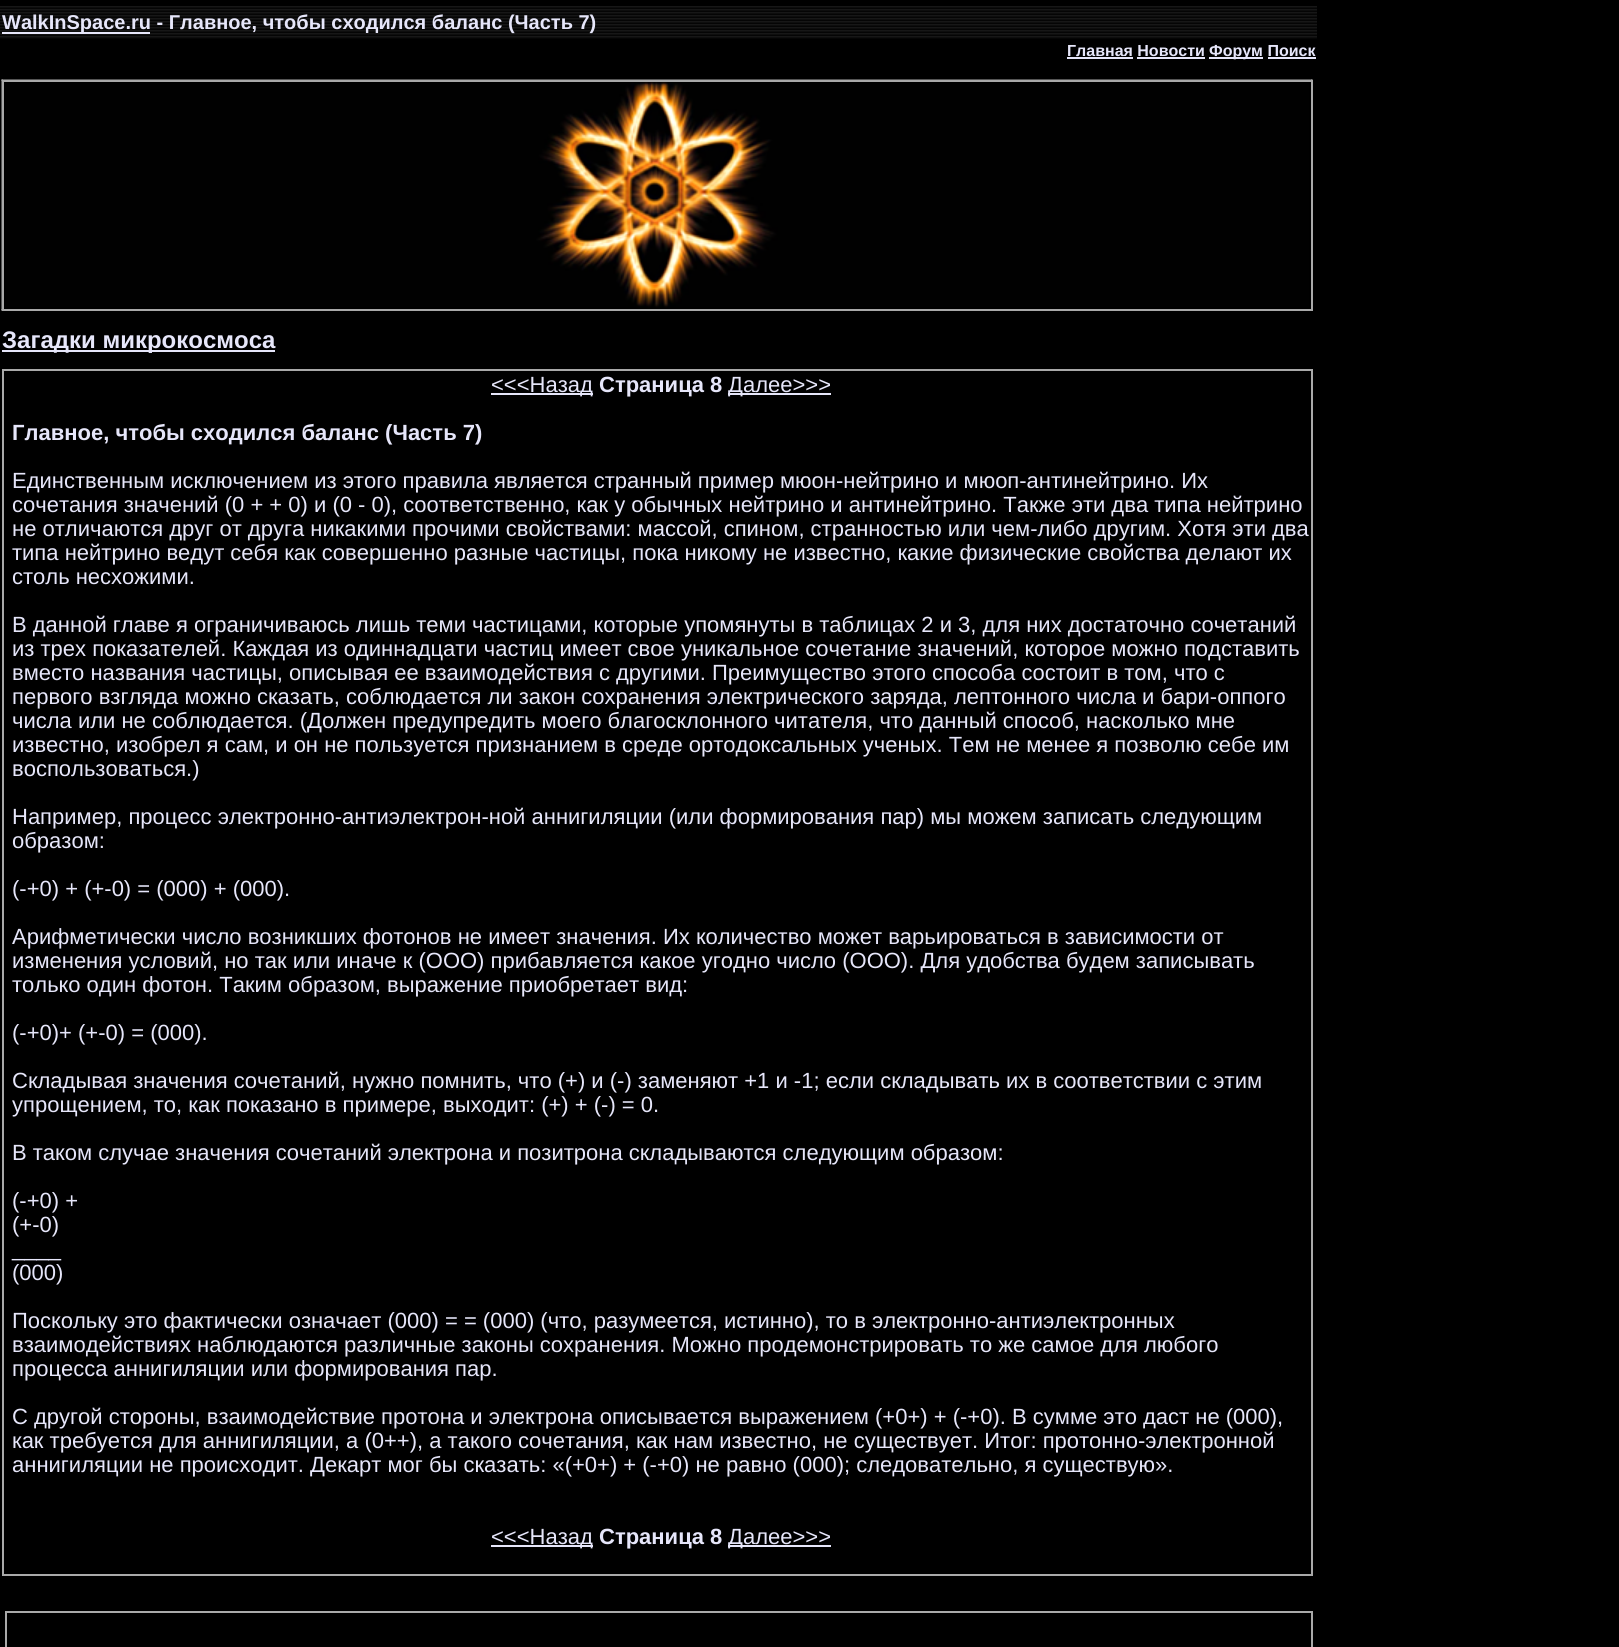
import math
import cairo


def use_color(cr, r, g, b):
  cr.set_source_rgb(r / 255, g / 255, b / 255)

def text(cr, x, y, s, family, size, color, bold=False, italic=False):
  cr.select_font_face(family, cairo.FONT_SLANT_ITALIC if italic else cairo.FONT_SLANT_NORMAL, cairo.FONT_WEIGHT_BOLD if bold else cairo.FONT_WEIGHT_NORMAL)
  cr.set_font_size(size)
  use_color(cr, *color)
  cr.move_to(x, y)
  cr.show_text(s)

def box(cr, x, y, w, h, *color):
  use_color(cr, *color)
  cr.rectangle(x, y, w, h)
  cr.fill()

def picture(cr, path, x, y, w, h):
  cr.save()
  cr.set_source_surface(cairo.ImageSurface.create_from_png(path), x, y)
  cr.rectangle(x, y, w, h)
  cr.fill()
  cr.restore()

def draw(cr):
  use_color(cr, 0, 0, 0)
  cr.paint()
  picture(cr, "img_01.png", 0, 6, 1317, 33)
  box(cr, 2, 32, 148, 2, 230, 230, 250)
  box(cr, 1067, 57, 66, 2, 230, 230, 250)
  box(cr, 1137, 57, 68, 2, 230, 230, 250)
  box(cr, 1209, 57, 54, 2, 230, 230, 250)
  box(cr, 1268, 57, 48, 2, 230, 230, 250)
  picture(cr, "img_02.png", 1, 79, 1312, 232)
  box(cr, 2, 80, 1311, 2, 169, 169, 169)
  box(cr, 1311, 80, 2, 231, 169, 169, 169)
  box(cr, 2, 310, 1311, 1, 169, 169, 169)
  box(cr, 3, 80, 1, 231, 169, 169, 169)
  box(cr, 2, 350, 273, 2, 230, 230, 250)
  box(cr, 2, 369, 1311, 2, 169, 169, 169)
  box(cr, 1311, 369, 2, 1206, 169, 169, 169)
  box(cr, 2, 1574, 1311, 2, 169, 169, 169)
  box(cr, 2, 369, 2, 1206, 169, 169, 169)
  box(cr, 491, 393, 102, 2, 230, 230, 250)
  box(cr, 728, 393, 103, 2, 230, 230, 250)
  box(cr, 491, 1545, 102, 2, 230, 230, 250)
  box(cr, 728, 1545, 103, 2, 230, 230, 250)
  cr.rectangle(6, 1612, 1306, 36)
  use_color(cr, 169, 169, 169)
  cr.stroke()
  text(cr, 2, 29, "WalkInSpace.ru - Главное, чтобы сходился баланс (Часть 7)", "Liberation Sans", 20, (230, 230, 250), bold=True)
  text(cr, 1067, 56, "Главная Новости", "Liberation Sans", 16, (230, 230, 250), bold=True)
  text(cr, 1209, 56, "Форум Поиск", "Liberation Sans", 16, (230, 230, 250), bold=True)
  text(cr, 2, 348, "Загадки микрокосмоса", "Liberation Sans", 24, (230, 230, 250), bold=True)
  text(cr, 491, 392, "<<<Назад", "Liberation Sans", 22, (230, 230, 250))
  text(cr, 599, 392, "Страница 8", "Liberation Sans", 22, (230, 230, 250), bold=True)
  text(cr, 728, 392, "Далее>>>", "Liberation Sans", 22, (230, 230, 250))
  text(cr, 12, 440, "Главное, чтобы сходился баланс (Часть 7)", "Liberation Sans", 22, (230, 230, 250), bold=True)
  text(cr, 12, 488, "Единственным исключением из этого правила является странный пример мюон-нейтрино и мюоп-антинейтрино. Их", "Liberation Sans", 22, (230, 230, 250))
  text(cr, 12, 512, "сочетания значений (0 + + 0) и (0 - 0), соответственно, как у обычных нейтрино и антинейтрино. Также эти два типа нейтрино", "Liberation Sans", 22, (230, 230, 250))
  text(cr, 12, 536, "не отличаются друг от друга никакими прочими свойствами: массой, спином, странностью или чем-либо другим. Хотя эти два", "Liberation Sans", 22, (230, 230, 250))
  text(cr, 12, 560, "типа нейтрино ведут себя как совершенно разные частицы, пока никому не известно, какие физические свойства делают их", "Liberation Sans", 22, (230, 230, 250))
  text(cr, 12, 584, "столь несхожими.", "Liberation Sans", 22, (230, 230, 250))
  text(cr, 12, 632, "В данной главе я ограничиваюсь лишь теми частицами, которые упомянуты в таблицах 2 и 3, для них достаточно сочетаний", "Liberation Sans", 22, (230, 230, 250))
  text(cr, 12, 656, "из трех показателей. Каждая из одиннадцати частиц имеет свое уникальное сочетание значений, которое можно подставить", "Liberation Sans", 22, (230, 230, 250))
  text(cr, 12, 680, "вместо названия частицы, описывая ее взаимодействия с другими. Преимущество этого способа состоит в том, что с", "Liberation Sans", 22, (230, 230, 250))
  text(cr, 12, 704, "первого взгляда можно сказать, соблюдается ли закон сохранения электрического заряда, лептонного числа и бари-оппого", "Liberation Sans", 22, (230, 230, 250))
  text(cr, 12, 728, "числа или не соблюдается. (Должен предупредить моего благосклонного читателя, что данный способ, насколько мне", "Liberation Sans", 22, (230, 230, 250))
  text(cr, 12, 752, "известно, изобрел я сам, и он не пользуется признанием в среде ортодоксальных ученых. Тем не менее я позволю себе им", "Liberation Sans", 22, (230, 230, 250))
  text(cr, 12, 776, "воспользоваться.)", "Liberation Sans", 22, (230, 230, 250))
  text(cr, 12, 824, "Например, процесс электронно-антиэлектрон-ной аннигиляции (или формирования пар) мы можем записать следующим", "Liberation Sans", 22, (230, 230, 250))
  text(cr, 12, 848, "образом:", "Liberation Sans", 22, (230, 230, 250))
  text(cr, 12, 896, "(-+0) + (+-0) = (000) + (000).", "Liberation Sans", 22, (230, 230, 250))
  text(cr, 12, 944, "Арифметически число возникших фотонов не имеет значения. Их количество может варьироваться в зависимости от", "Liberation Sans", 22, (230, 230, 250))
  text(cr, 12, 968, "изменения условий, но так или иначе к (ООО) прибавляется какое угодно число (ООО). Для удобства будем записывать", "Liberation Sans", 22, (230, 230, 250))
  text(cr, 12, 992, "только один фотон. Таким образом, выражение приобретает вид:", "Liberation Sans", 22, (230, 230, 250))
  text(cr, 12, 1040, "(-+0)+ (+-0) = (000).", "Liberation Sans", 22, (230, 230, 250))
  text(cr, 12, 1088, "Складывая значения сочетаний, нужно помнить, что (+) и (-) заменяют +1 и -1; если складывать их в соответствии с этим", "Liberation Sans", 22, (230, 230, 250))
  text(cr, 12, 1112, "упрощением, то, как показано в примере, выходит: (+) + (-) = 0.", "Liberation Sans", 22, (230, 230, 250))
  text(cr, 12, 1160, "В таком случае значения сочетаний электрона и позитрона складываются следующим образом:", "Liberation Sans", 22, (230, 230, 250))
  text(cr, 12, 1208, "(-+0) +", "Liberation Sans", 22, (230, 230, 250))
  text(cr, 12, 1232, "(+-0)", "Liberation Sans", 22, (230, 230, 250))
  text(cr, 12, 1256, "____", "Liberation Sans", 22, (230, 230, 250))
  text(cr, 12, 1280, "(000)", "Liberation Sans", 22, (230, 230, 250))
  text(cr, 12, 1328, "Поскольку это фактически означает (000) = = (000) (что, разумеется, истинно), то в электронно-антиэлектронных", "Liberation Sans", 22, (230, 230, 250))
  text(cr, 12, 1352, "взаимодействиях наблюдаются различные законы сохранения. Можно продемонстрировать то же самое для любого", "Liberation Sans", 22, (230, 230, 250))
  text(cr, 12, 1376, "процесса аннигиляции или формирования пар.", "Liberation Sans", 22, (230, 230, 250))
  text(cr, 12, 1424, "С другой стороны, взаимодействие протона и электрона описывается выражением (+0+) + (-+0). В сумме это даст не (000),", "Liberation Sans", 22, (230, 230, 250))
  text(cr, 12, 1448, "как требуется для аннигиляции, а (0++), а такого сочетания, как нам известно, не существует. Итог: протонно-электронной", "Liberation Sans", 22, (230, 230, 250))
  text(cr, 12, 1472, "аннигиляции не происходит. Декарт мог бы сказать: «(+0+) + (-+0) не равно (000); следовательно, я существую».", "Liberation Sans", 22, (230, 230, 250))
  text(cr, 491, 1544, "<<<Назад", "Liberation Sans", 22, (230, 230, 250))
  text(cr, 599, 1544, "Страница 8", "Liberation Sans", 22, (230, 230, 250), bold=True)
  text(cr, 728, 1544, "Далее>>>", "Liberation Sans", 22, (230, 230, 250))


surface = cairo.ImageSurface(cairo.FORMAT_RGB24, 1619, 1647)
cr = cairo.Context(surface)
options = cairo.FontOptions()
options.set_hint_metrics(cairo.HINT_METRICS_OFF)
options.set_hint_style(cairo.HINT_STYLE_NONE)
cr.set_font_options(options)
cr.set_miter_limit(4)
draw(cr)
surface.write_to_png("out.png")
